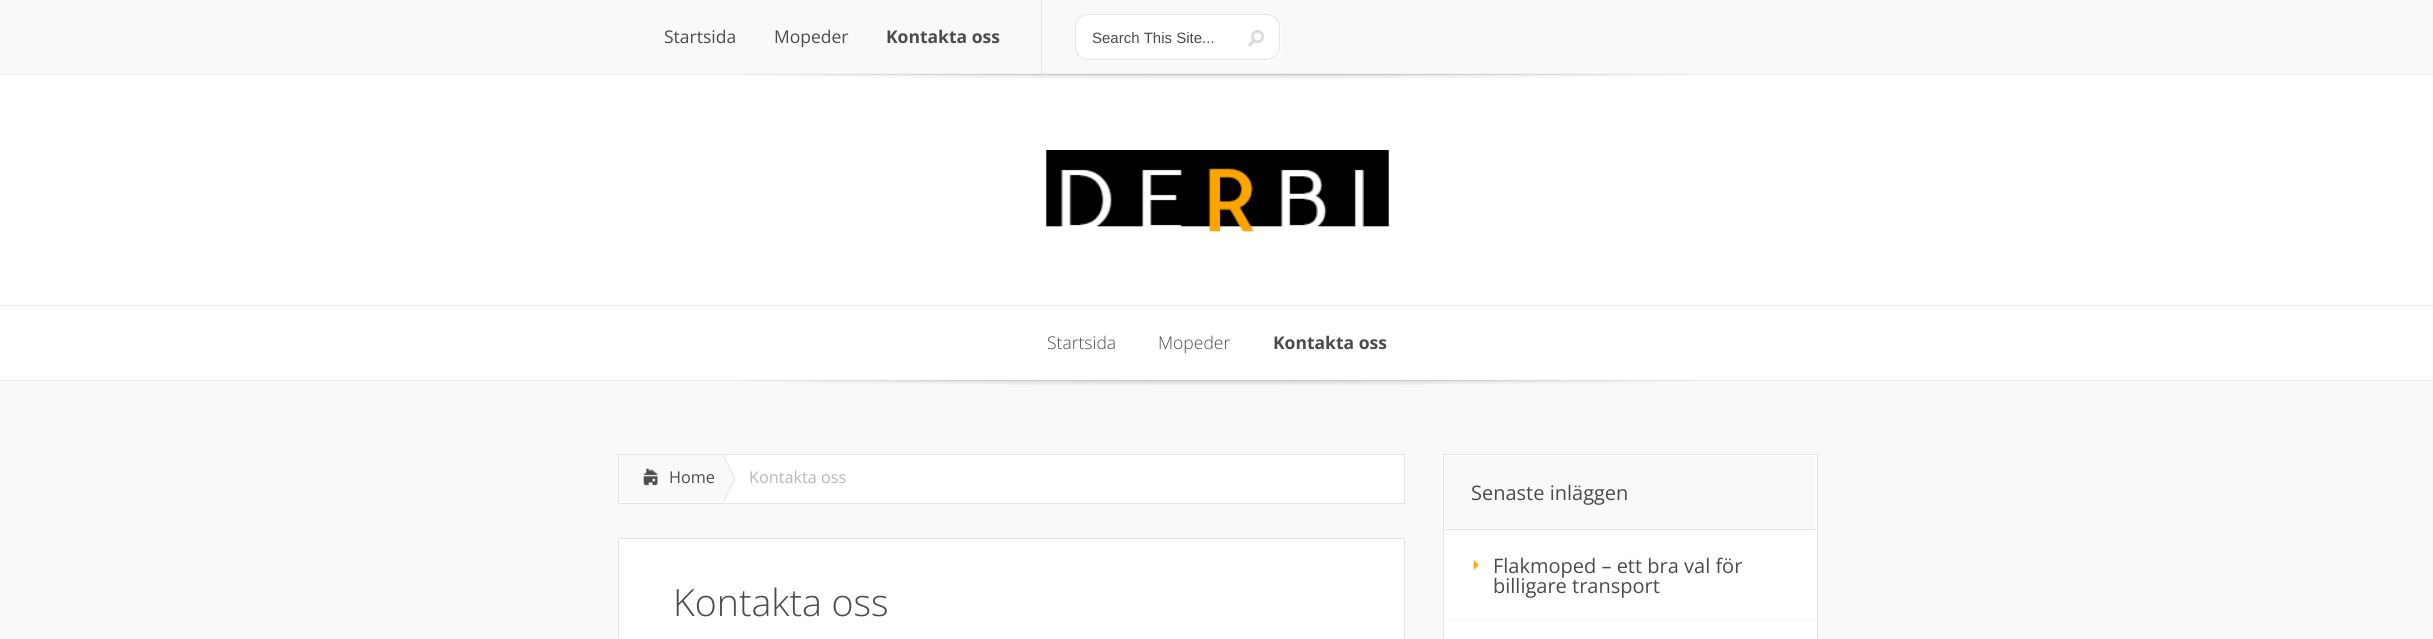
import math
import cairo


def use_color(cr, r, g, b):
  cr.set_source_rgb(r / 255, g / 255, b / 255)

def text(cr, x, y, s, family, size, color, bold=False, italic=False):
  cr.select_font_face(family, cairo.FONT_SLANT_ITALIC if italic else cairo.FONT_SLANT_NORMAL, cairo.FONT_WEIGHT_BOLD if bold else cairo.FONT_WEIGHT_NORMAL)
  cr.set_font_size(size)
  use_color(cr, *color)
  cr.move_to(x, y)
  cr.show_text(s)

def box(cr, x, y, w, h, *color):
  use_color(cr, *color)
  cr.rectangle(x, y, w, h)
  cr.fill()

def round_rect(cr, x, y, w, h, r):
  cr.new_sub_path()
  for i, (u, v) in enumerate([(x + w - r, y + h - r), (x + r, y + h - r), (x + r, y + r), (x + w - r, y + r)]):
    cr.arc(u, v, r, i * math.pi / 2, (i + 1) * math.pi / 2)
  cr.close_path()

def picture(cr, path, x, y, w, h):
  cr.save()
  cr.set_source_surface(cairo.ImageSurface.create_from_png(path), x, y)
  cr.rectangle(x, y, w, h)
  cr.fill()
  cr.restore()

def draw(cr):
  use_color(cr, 255, 255, 255)
  cr.paint()
  box(cr, 0, 0, 2433, 74, 249, 249, 249)
  box(cr, 0, 74, 2433, 1, 238, 238, 238)
  picture(cr, "img_02.png", 748, 73, 939, 6)
  box(cr, 1041, 0, 1, 74, 229, 229, 229)
  box(cr, 1043, 0, 1, 60, 255, 255, 255)
  cr.new_path()
  cr.move_to(1081, 58)
  cr.curve_to(1083, 60, 1086, 61, 1089, 61)
  cr.line_to(1268, 61)
  cr.curve_to(1275, 61, 1281, 55, 1281, 48)
  cr.line_to(1281, 28)
  cr.curve_to(1281, 25, 1280, 23, 1279, 20)
  cr.curve_to(1279, 22, 1280, 24, 1280, 26)
  cr.line_to(1280, 48)
  cr.curve_to(1280, 54, 1274, 60, 1268, 60)
  cr.line_to(1088, 60)
  cr.curve_to(1085, 60, 1083, 59, 1081, 58)
  cr.close_path()
  cr.fill()
  round_rect(cr, 1075.5, 14.5, 204, 45, 12.5)
  cr.fill_preserve()
  use_color(cr, 229, 229, 229)
  cr.set_line_width(1)
  cr.stroke()
  picture(cr, "img_01.png", 1247, 30, 17, 17)
  picture(cr, "img_03.png", 1046, 150, 343, 82)
  box(cr, 0, 305, 2433, 1, 238, 238, 238)
  box(cr, 0, 380, 2433, 1, 238, 238, 238)
  box(cr, 0, 381, 2433, 258, 249, 249, 249)
  picture(cr, "img_04.png", 739, 380, 957, 5)
  use_color(cr, 255, 255, 255)
  cr.rectangle(618.5, 454.5, 786, 49)
  cr.fill_preserve()
  use_color(cr, 229, 229, 229)
  cr.stroke()
  box(cr, 620, 455, 103, 46, 249, 249, 249)
  picture(cr, "img_05.png", 643, 468, 16, 18)
  picture(cr, "img_06.png", 722, 455, 13, 48)
  use_color(cr, 255, 255, 255)
  cr.rectangle(618.5, 538.5, 786, 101)
  cr.fill_preserve()
  use_color(cr, 229, 229, 229)
  cr.stroke()
  use_color(cr, 255, 255, 255)
  cr.rectangle(1443.5, 454.5, 374, 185)
  cr.fill_preserve()
  use_color(cr, 229, 229, 229)
  cr.stroke()
  box(cr, 1445, 456, 370, 73, 249, 249, 249)
  box(cr, 1444, 529, 372, 1, 229, 229, 229)
  box(cr, 1444, 529, 1, 1, 255, 255, 255)
  picture(cr, "img_07.png", 1473, 560, 6, 10)
  box(cr, 1444, 620, 372, 1, 247, 247, 247)
  text(cr, 664, 43, "Startsida", "Open Sans", 17.5, (75, 75, 75))
  text(cr, 774, 43, "Mopeder", "Open Sans", 17.5, (75, 75, 75))
  text(cr, 886, 43, "Kontakta oss", "Open Sans", 17.5, (75, 75, 75), bold=True)
  text(cr, 1092, 43, "Search This Site...", "Liberation Sans", 15, (75, 75, 75))
  text(cr, 1047, 349, "Startsida", "Open Sans Light", 17.5, (75, 75, 75))
  text(cr, 1158, 349, "Mopeder", "Open Sans Light", 17.5, (75, 75, 75))
  text(cr, 1273, 349, "Kontakta oss", "Open Sans", 17.5, (75, 75, 75), bold=True)
  text(cr, 669, 483, "Home", "Open Sans", 16.25, (75, 75, 75))
  text(cr, 749, 483, "Kontakta oss", "Open Sans", 16.25, (184, 184, 184))
  text(cr, 673, 616, "Kontakta oss", "Open Sans Light", 37.5, (75, 75, 75))
  text(cr, 1471, 500, "Senaste inläggen", "Open Sans", 20, (75, 75, 75))
  text(cr, 1493, 573, "Flakmoped – ett bra val för", "Open Sans", 20, (75, 75, 75))
  text(cr, 1493, 593, "billigare transport", "Open Sans", 20, (75, 75, 75))


surface = cairo.ImageSurface(cairo.FORMAT_RGB24, 2433, 639)
cr = cairo.Context(surface)
options = cairo.FontOptions()
options.set_hint_metrics(cairo.HINT_METRICS_OFF)
options.set_hint_style(cairo.HINT_STYLE_NONE)
cr.set_font_options(options)
cr.set_miter_limit(4)
draw(cr)
surface.write_to_png("out.png")
